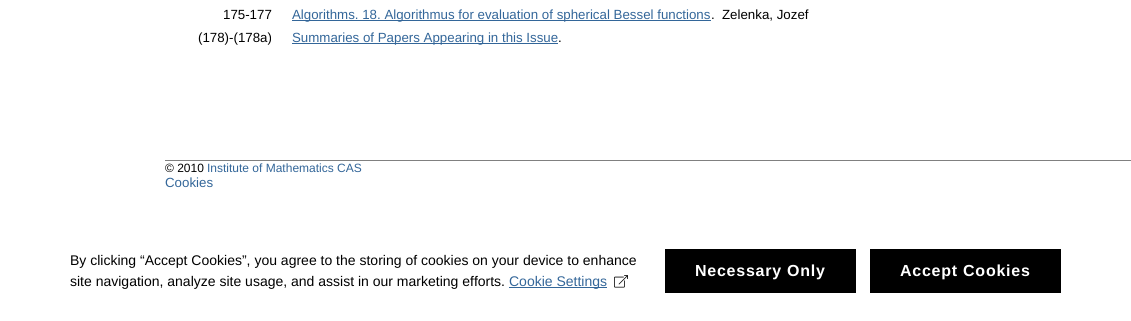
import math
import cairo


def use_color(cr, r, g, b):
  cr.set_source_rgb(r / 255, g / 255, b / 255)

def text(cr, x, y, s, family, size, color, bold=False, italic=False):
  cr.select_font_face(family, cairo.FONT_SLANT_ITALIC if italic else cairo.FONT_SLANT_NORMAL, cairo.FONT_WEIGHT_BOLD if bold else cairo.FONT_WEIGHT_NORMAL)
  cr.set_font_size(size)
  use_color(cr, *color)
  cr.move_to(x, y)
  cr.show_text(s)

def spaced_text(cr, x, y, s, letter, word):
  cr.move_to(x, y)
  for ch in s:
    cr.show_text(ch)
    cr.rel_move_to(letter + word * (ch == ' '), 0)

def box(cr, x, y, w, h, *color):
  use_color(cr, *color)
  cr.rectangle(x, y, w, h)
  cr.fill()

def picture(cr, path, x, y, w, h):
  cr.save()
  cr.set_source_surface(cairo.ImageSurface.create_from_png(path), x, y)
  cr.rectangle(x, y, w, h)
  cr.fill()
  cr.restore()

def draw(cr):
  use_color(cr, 255, 255, 255)
  cr.paint()
  box(cr, 292, 20, 419, 1, 51, 102, 153)
  box(cr, 292, 43, 266, 1, 51, 102, 153)
  box(cr, 165, 160, 966, 1, 128, 128, 128)
  box(cr, 509, 287, 98, 1, 51, 102, 153)
  picture(cr, "img_01.png", 614, 275, 14, 13)
  box(cr, 665, 249, 191, 44, 0, 0, 0)
  box(cr, 870, 249, 191, 44, 0, 0, 0)
  text(cr, 223, 19, "175-177", "Liberation Sans", 13.3, (0, 0, 0))
  text(cr, 292, 19, "Algorithms. 18. Algorithmus for evaluation of spherical Bessel functions", "Liberation Sans", 13.3, (51, 102, 153))
  text(cr, 711, 19, ".", "Liberation Sans", 13.3, (0, 0, 0))
  text(cr, 722, 19, "Zelenka, Jozef", "Liberation Sans", 13.3, (0, 0, 0))
  text(cr, 198, 42, "(178)-(178a)", "Liberation Sans", 13.3, (0, 0, 0))
  text(cr, 292, 42, "Summaries of Papers Appearing in this Issue", "Liberation Sans", 13.3, (51, 102, 153))
  text(cr, 558, 42, ".", "Liberation Sans", 13.3, (0, 0, 0))
  text(cr, 165, 172, "© 2010", "Liberation Sans", 12, (0, 0, 0))
  text(cr, 207, 172, "Institute of Mathematics CAS", "Liberation Sans", 12, (51, 102, 153))
  text(cr, 165, 187, "Cookies", "Liberation Sans", 13.3, (51, 102, 153))
  text(cr, 70, 265, "By clicking “Accept Cookies”, you agree to the storing of cookies on your device to enhance", "Liberation Sans", 14, (0, 0, 0))
  text(cr, 70, 286, "site navigation, analyze site usage, and assist in our marketing efforts.", "Liberation Sans", 14, (0, 0, 0))
  text(cr, 509, 286, "Cookie Settings", "Liberation Sans", 14, (51, 102, 153))
  cr.select_font_face("Liberation Sans", cairo.FONT_SLANT_NORMAL, cairo.FONT_WEIGHT_BOLD)
  cr.set_font_size(16)
  use_color(cr, 255, 255, 255)
  spaced_text(cr, 695, 276, "Necessary Only", 0.75, 0)
  spaced_text(cr, 900, 276, "Accept Cookies", 0.75, 0)


surface = cairo.ImageSurface(cairo.FORMAT_RGB24, 1131, 321)
cr = cairo.Context(surface)
options = cairo.FontOptions()
options.set_hint_metrics(cairo.HINT_METRICS_OFF)
options.set_hint_style(cairo.HINT_STYLE_NONE)
cr.set_font_options(options)
cr.set_miter_limit(4)
draw(cr)
surface.write_to_png("out.png")
